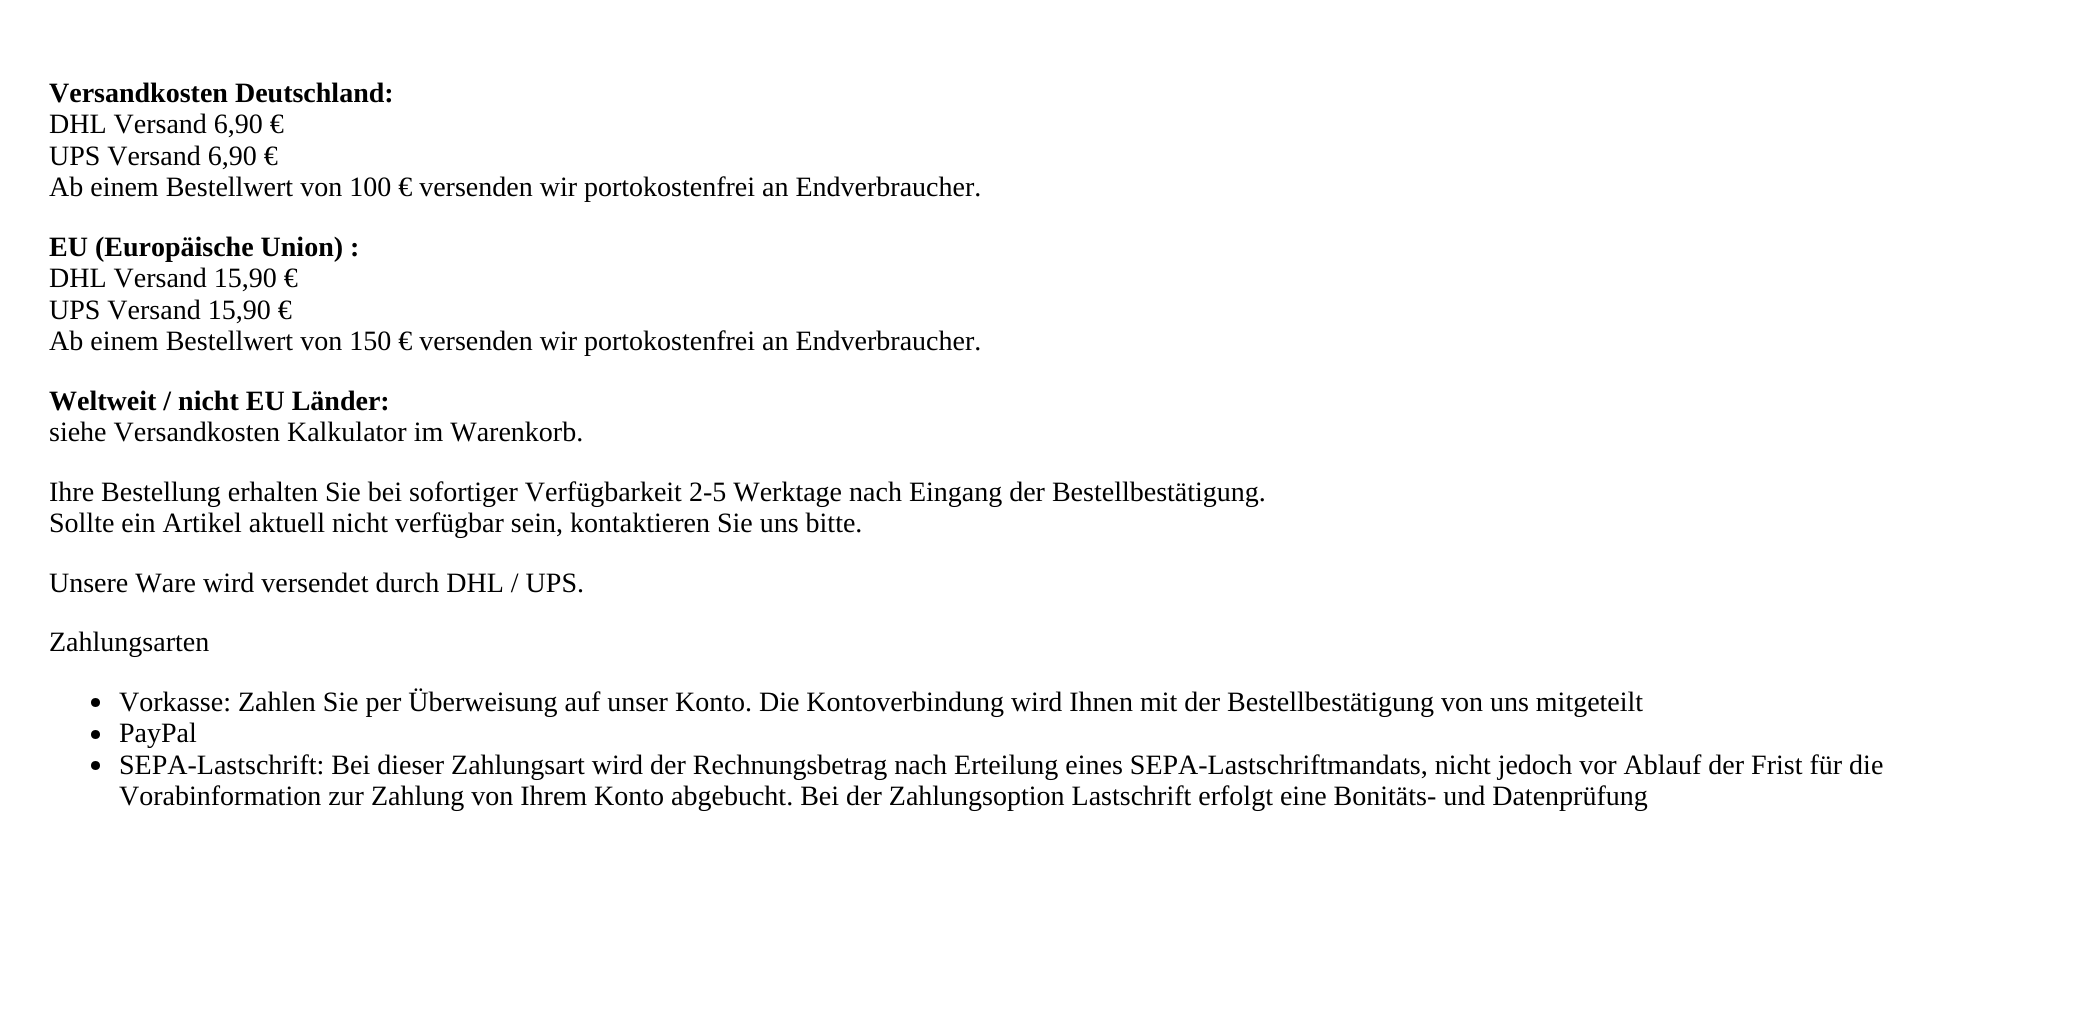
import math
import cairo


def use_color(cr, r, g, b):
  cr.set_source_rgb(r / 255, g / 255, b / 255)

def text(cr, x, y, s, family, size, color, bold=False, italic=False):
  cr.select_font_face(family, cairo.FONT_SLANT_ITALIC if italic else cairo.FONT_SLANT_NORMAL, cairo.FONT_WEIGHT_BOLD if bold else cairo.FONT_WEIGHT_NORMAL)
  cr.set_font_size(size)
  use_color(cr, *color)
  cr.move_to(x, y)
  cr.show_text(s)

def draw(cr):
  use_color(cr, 255, 255, 255)
  cr.paint()
  use_color(cr, 0, 0, 0)
  cr.arc(95.5, 702.5, 4.5, 0, 2 * math.pi)
  cr.fill()
  cr.arc(95.5, 734.5, 4.5, 0, 2 * math.pi)
  cr.fill()
  cr.arc(95.5, 765.5, 4.5, 0, 2 * math.pi)
  cr.fill()
  text(cr, 49, 102, "Versandkosten Deutschland:", "Liberation Serif", 28, (0, 0, 0), bold=True)
  text(cr, 49, 133, "DHL Versand 6,90 €", "Liberation Serif", 28, (0, 0, 0))
  text(cr, 49, 165, "UPS Versand 6,90 €", "Liberation Serif", 28, (0, 0, 0))
  text(cr, 49, 196, "Ab einem Bestellwert von 100 € versenden wir portokostenfrei an Endverbraucher.", "Liberation Serif", 28, (0, 0, 0))
  text(cr, 49, 256, "EU (Europäische Union) :", "Liberation Serif", 28, (0, 0, 0), bold=True)
  text(cr, 49, 287, "DHL Versand 15,90 €", "Liberation Serif", 28, (0, 0, 0))
  text(cr, 49, 319, "UPS Versand 15,90 €", "Liberation Serif", 28, (0, 0, 0))
  text(cr, 49, 350, "Ab einem Bestellwert von 150 € versenden wir portokostenfrei an Endverbraucher.", "Liberation Serif", 28, (0, 0, 0))
  text(cr, 49, 410, "Weltweit / nicht EU Länder:", "Liberation Serif", 28, (0, 0, 0), bold=True)
  text(cr, 49, 441, "siehe Versandkosten Kalkulator im Warenkorb.", "Liberation Serif", 28, (0, 0, 0))
  text(cr, 49, 501, "Ihre Bestellung erhalten Sie bei sofortiger Verfügbarkeit 2-5 Werktage nach Eingang der Bestellbestätigung.", "Liberation Serif", 28, (0, 0, 0))
  text(cr, 49, 532, "Sollte ein Artikel aktuell nicht verfügbar sein, kontaktieren Sie uns bitte.", "Liberation Serif", 28, (0, 0, 0))
  text(cr, 49, 592, "Unsere Ware wird versendet durch DHL / UPS.", "Liberation Serif", 28, (0, 0, 0))
  text(cr, 49, 651, "Zahlungsarten", "Liberation Serif", 28, (0, 0, 0))
  text(cr, 119, 711, "Vorkasse: Zahlen Sie per Überweisung auf unser Konto. Die Kontoverbindung wird Ihnen mit der Bestellbestätigung von uns mitgeteilt", "Liberation Serif", 28, (0, 0, 0))
  text(cr, 119, 742, "PayPal", "Liberation Serif", 28, (0, 0, 0))
  text(cr, 119, 774, "SEPA-Lastschrift: Bei dieser Zahlungsart wird der Rechnungsbetrag nach Erteilung eines SEPA-Lastschriftmandats, nicht jedoch vor Ablauf der Frist für die", "Liberation Serif", 28, (0, 0, 0))
  text(cr, 119, 805, "Vorabinformation zur Zahlung von Ihrem Konto abgebucht. Bei der Zahlungsoption Lastschrift erfolgt eine Bonitäts- und Datenprüfung", "Liberation Serif", 28, (0, 0, 0))


surface = cairo.ImageSurface(cairo.FORMAT_RGB24, 2080, 1012)
cr = cairo.Context(surface)
options = cairo.FontOptions()
options.set_hint_metrics(cairo.HINT_METRICS_OFF)
options.set_hint_style(cairo.HINT_STYLE_NONE)
cr.set_font_options(options)
cr.set_miter_limit(4)
draw(cr)
surface.write_to_png("out.png")
